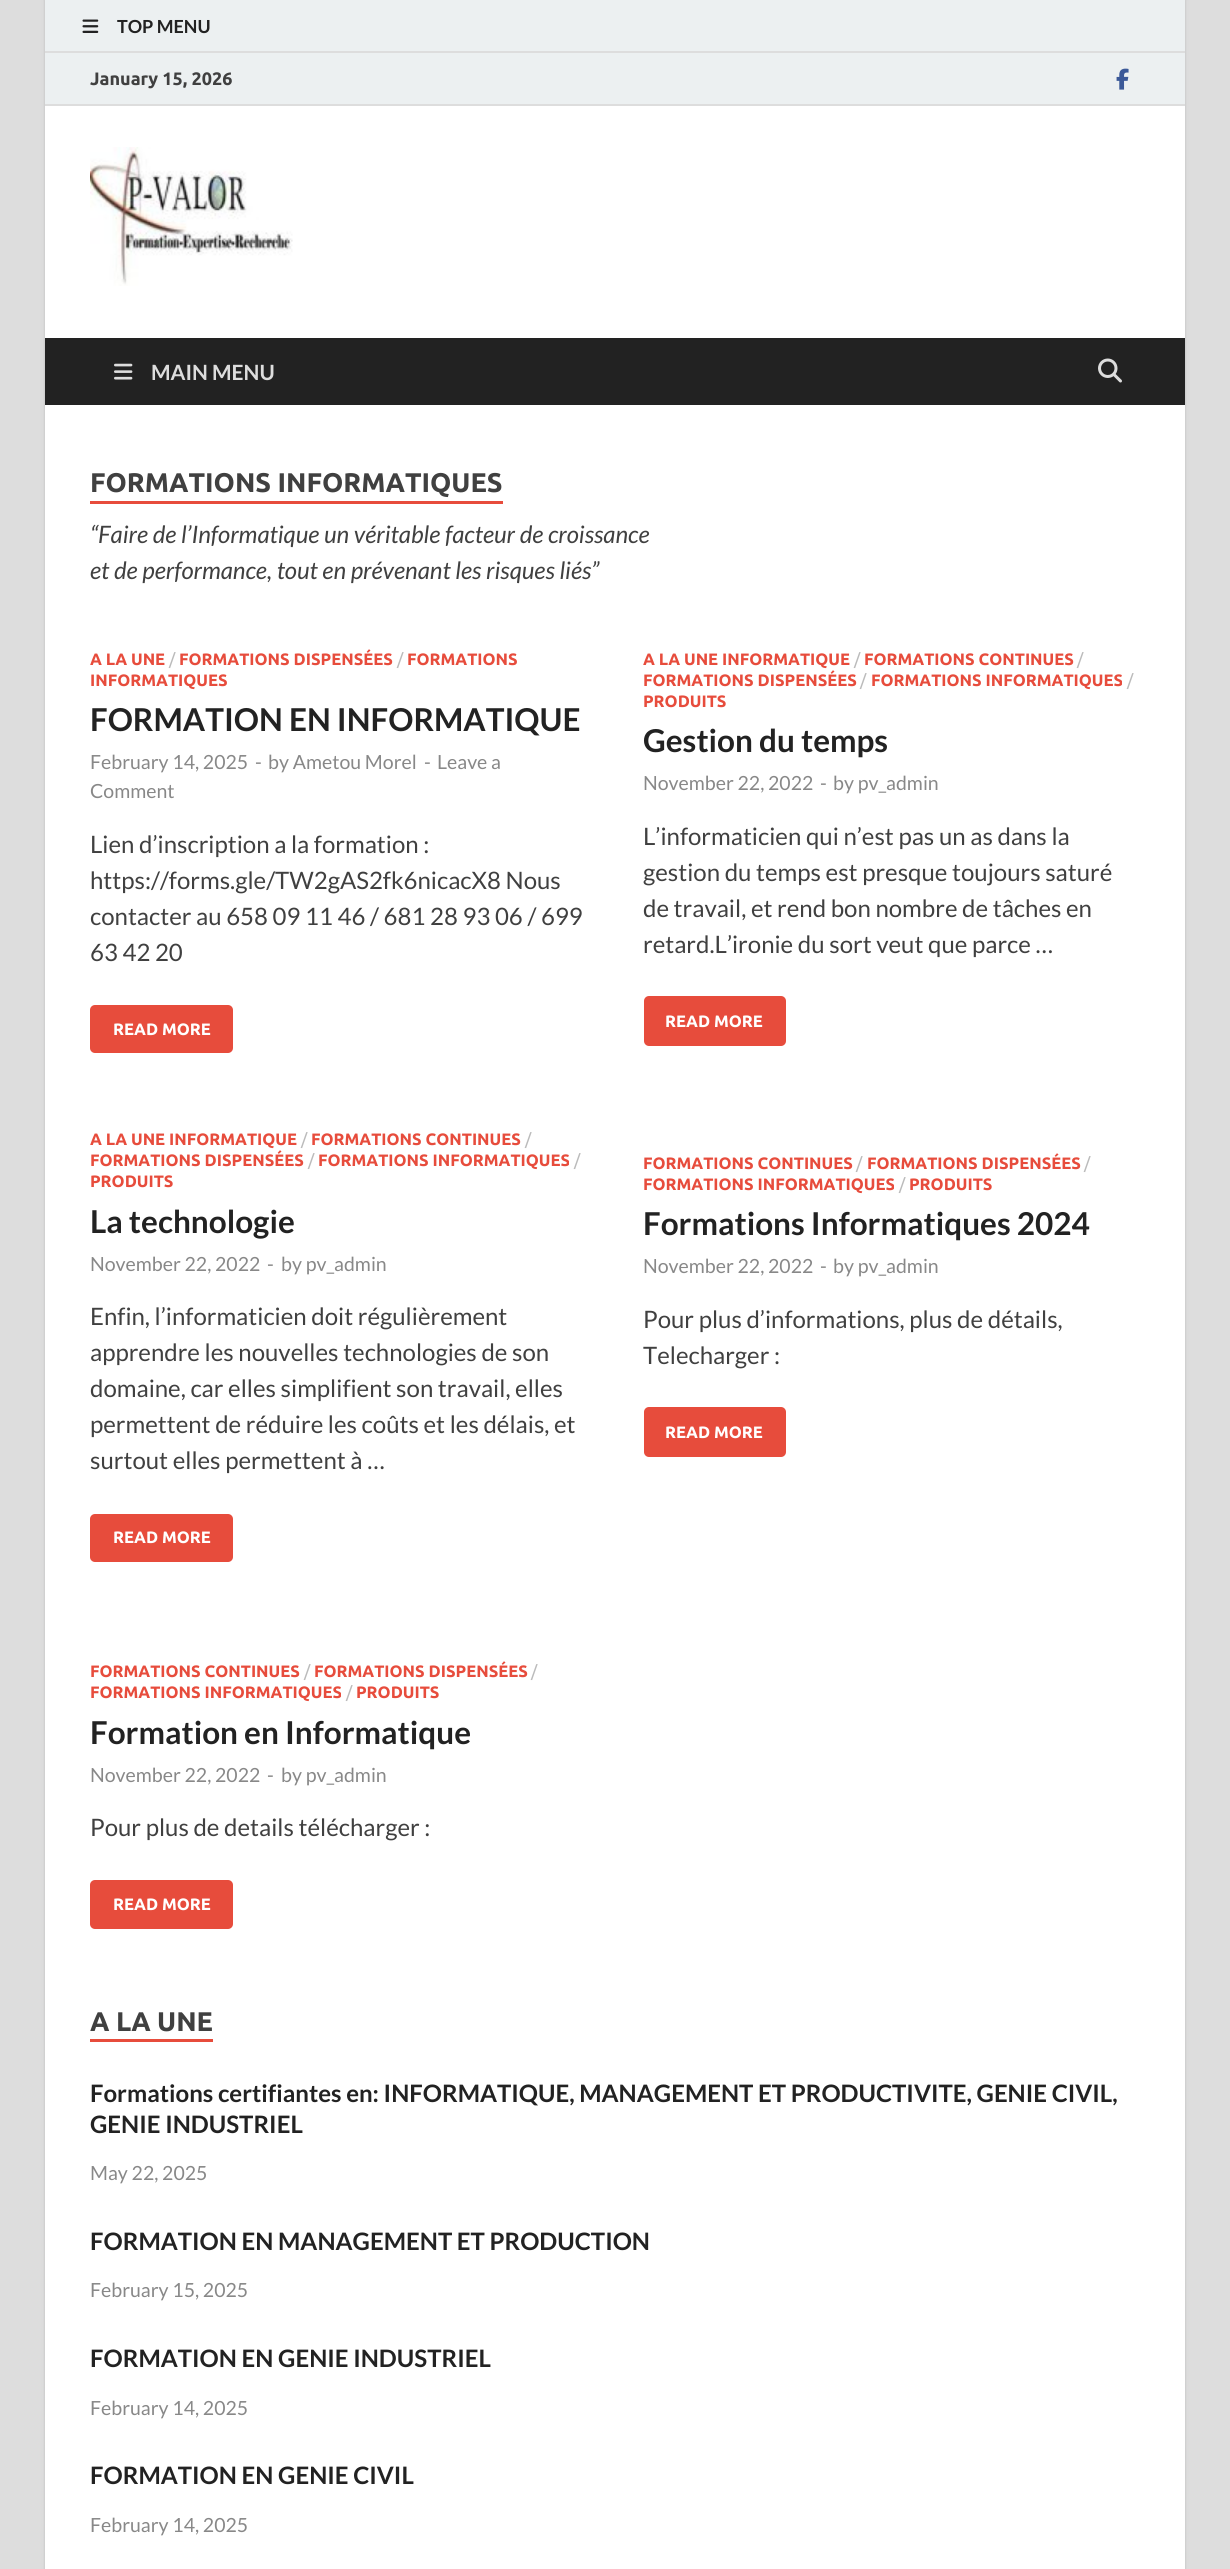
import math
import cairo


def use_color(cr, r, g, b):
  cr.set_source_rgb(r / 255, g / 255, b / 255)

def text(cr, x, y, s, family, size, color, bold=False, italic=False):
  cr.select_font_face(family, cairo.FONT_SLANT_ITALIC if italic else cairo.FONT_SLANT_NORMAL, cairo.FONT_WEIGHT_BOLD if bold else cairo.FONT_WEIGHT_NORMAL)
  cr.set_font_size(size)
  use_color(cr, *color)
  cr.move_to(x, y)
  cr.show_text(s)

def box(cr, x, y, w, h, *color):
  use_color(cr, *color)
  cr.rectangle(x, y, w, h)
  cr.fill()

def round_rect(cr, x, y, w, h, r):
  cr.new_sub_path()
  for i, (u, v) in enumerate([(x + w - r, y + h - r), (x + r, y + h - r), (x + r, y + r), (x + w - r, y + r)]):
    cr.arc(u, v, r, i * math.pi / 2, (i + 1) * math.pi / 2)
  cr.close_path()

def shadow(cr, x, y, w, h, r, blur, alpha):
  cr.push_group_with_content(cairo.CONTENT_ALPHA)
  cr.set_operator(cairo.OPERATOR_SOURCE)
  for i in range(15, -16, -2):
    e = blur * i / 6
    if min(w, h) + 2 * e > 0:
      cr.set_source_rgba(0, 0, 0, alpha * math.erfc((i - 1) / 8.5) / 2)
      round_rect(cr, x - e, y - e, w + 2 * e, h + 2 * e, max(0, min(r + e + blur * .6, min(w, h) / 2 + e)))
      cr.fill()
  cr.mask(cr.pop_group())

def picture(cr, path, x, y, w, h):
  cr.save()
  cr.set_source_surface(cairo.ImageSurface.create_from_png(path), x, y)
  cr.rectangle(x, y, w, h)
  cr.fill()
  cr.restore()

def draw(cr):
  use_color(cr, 221, 221, 221)
  cr.paint()
  use_color(cr, 187, 187, 187)
  shadow(cr, 45, 0, 1140, 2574, 0, 1.5, 1)
  box(cr, 45, 106, 1140, 2463, 255, 255, 255)
  box(cr, 45, 0, 1140, 51, 236, 240, 241)
  box(cr, 45, 51, 1140, 2, 221, 221, 221)
  picture(cr, "img_01.png", 82, 19, 17, 14)
  box(cr, 45, 53, 1140, 51, 236, 240, 241)
  box(cr, 45, 104, 1140, 2, 221, 221, 221)
  picture(cr, "img_02.png", 1116, 68, 13, 22)
  picture(cr, "img_03.png", 90, 147, 203, 139)
  box(cr, 45, 338, 1140, 67, 34, 34, 34)
  picture(cr, "img_04.png", 114, 363, 19, 17)
  picture(cr, "img_05.png", 1098, 358, 24, 25)
  box(cr, 90, 501, 413, 3, 231, 76, 60)
  round_rect(cr, 90, 1005, 143, 48, 5)
  cr.fill()
  round_rect(cr, 644, 996, 142, 50, 5)
  cr.fill()
  round_rect(cr, 90, 1514, 143, 48, 5)
  cr.fill()
  round_rect(cr, 644, 1407, 142, 50, 5)
  cr.fill()
  round_rect(cr, 90, 1880, 143, 49, 5)
  cr.fill()
  box(cr, 90, 2039, 123, 3, 231, 76, 60)
  text(cr, 117, 33, "TOP MENU", "Lato", 18, (34, 34, 34), bold=True)
  text(cr, 90, 85, "January 15, 2026", "Ubuntu", 18, (64, 64, 64), bold=True)
  text(cr, 151, 380, "MAIN MENU", "Lato", 21, (221, 221, 221), bold=True)
  text(cr, 90, 492, "FORMATIONS INFORMATIQUES", "Ubuntu", 27, (64, 64, 64), bold=True)
  text(cr, 90, 543, "“Faire de l’Informatique un véritable facteur de croissance", "Lato", 24, (64, 64, 64), italic=True)
  text(cr, 90, 579, "et de performance, tout en prévenant les risques liés”", "Lato", 24, (64, 64, 64), italic=True)
  text(cr, 90, 665, "A LA UNE", "Ubuntu", 16.5, (231, 76, 60), bold=True)
  text(cr, 169, 665, "/", "Ubuntu", 16.5, (187, 187, 187))
  text(cr, 179, 665, "FORMATIONS DISPENSÉES", "Ubuntu", 16.5, (231, 76, 60), bold=True)
  text(cr, 397, 665, "/", "Ubuntu", 16.5, (187, 187, 187))
  text(cr, 407, 665, "FORMATIONS", "Ubuntu", 16.5, (231, 76, 60), bold=True)
  text(cr, 90, 686, "INFORMATIQUES", "Ubuntu", 16.5, (231, 76, 60), bold=True)
  text(cr, 90, 731, "FORMATION EN INFORMATIQUE", "Lato", 31.5, (34, 34, 34), bold=True)
  text(cr, 90, 769, "February 14, 2025", "Lato", 19.5, (136, 136, 136))
  text(cr, 255, 769, "-", "Lato", 19.5, (136, 136, 136))
  text(cr, 268, 769, "by Ametou Morel", "Lato", 19.5, (136, 136, 136))
  text(cr, 424, 769, "-", "Lato", 19.5, (136, 136, 136))
  text(cr, 437, 769, "Leave a", "Lato", 19.5, (136, 136, 136))
  text(cr, 90, 798, "Comment", "Lato", 19.5, (136, 136, 136))
  text(cr, 90, 853, "Lien d’inscription a la formation :", "Lato", 24, (64, 64, 64))
  text(cr, 90, 889, "https://forms.gle/TW2gAS2fk6nicacX8 Nous", "Lato", 24, (64, 64, 64))
  text(cr, 90, 925, "contacter au 658 09 11 46 / 681 28 93 06 / 699", "Lato", 24, (64, 64, 64))
  text(cr, 90, 961, "63 42 20", "Lato", 24, (64, 64, 64))
  text(cr, 113, 1035, "READ MORE", "Ubuntu", 16.5, (255, 255, 255), bold=True)
  text(cr, 643, 665, "A LA UNE INFORMATIQUE", "Ubuntu", 16.5, (231, 76, 60), bold=True)
  text(cr, 854, 665, "/", "Ubuntu", 16.5, (187, 187, 187))
  text(cr, 864, 665, "FORMATIONS CONTINUES", "Ubuntu", 16.5, (231, 76, 60), bold=True)
  text(cr, 1077, 665, "/", "Ubuntu", 16.5, (187, 187, 187))
  text(cr, 643, 686, "FORMATIONS DISPENSÉES", "Ubuntu", 16.5, (231, 76, 60), bold=True)
  text(cr, 860, 686, "/", "Ubuntu", 16.5, (187, 187, 187))
  text(cr, 871, 686, "FORMATIONS INFORMATIQUES", "Ubuntu", 16.5, (231, 76, 60), bold=True)
  text(cr, 1127, 686, "/", "Ubuntu", 16.5, (187, 187, 187))
  text(cr, 643, 707, "PRODUITS", "Ubuntu", 16.5, (231, 76, 60), bold=True)
  text(cr, 643, 752, "Gestion du temps", "Lato", 31.5, (34, 34, 34), bold=True)
  text(cr, 643, 790, "November 22, 2022", "Lato", 19.5, (136, 136, 136))
  text(cr, 820, 790, "-", "Lato", 19.5, (136, 136, 136))
  text(cr, 833, 790, "by pv_admin", "Lato", 19.5, (136, 136, 136))
  text(cr, 643, 845, "L’informaticien qui n’est pas un as dans la", "Lato", 24, (64, 64, 64))
  text(cr, 643, 881, "gestion du temps est presque toujours saturé", "Lato", 24, (64, 64, 64))
  text(cr, 643, 917, "de travail, et rend bon nombre de tâches en", "Lato", 24, (64, 64, 64))
  text(cr, 643, 953, "retard.L’ironie du sort veut que parce …", "Lato", 24, (64, 64, 64))
  text(cr, 665, 1027, "READ MORE", "Ubuntu", 16.5, (255, 255, 255), bold=True)
  text(cr, 90, 1145, "A LA UNE INFORMATIQUE", "Ubuntu", 16.5, (231, 76, 60), bold=True)
  text(cr, 301, 1145, "/", "Ubuntu", 16.5, (187, 187, 187))
  text(cr, 311, 1145, "FORMATIONS CONTINUES", "Ubuntu", 16.5, (231, 76, 60), bold=True)
  text(cr, 525, 1145, "/", "Ubuntu", 16.5, (187, 187, 187))
  text(cr, 90, 1166, "FORMATIONS DISPENSÉES", "Ubuntu", 16.5, (231, 76, 60), bold=True)
  text(cr, 308, 1166, "/", "Ubuntu", 16.5, (187, 187, 187))
  text(cr, 318, 1166, "FORMATIONS INFORMATIQUES", "Ubuntu", 16.5, (231, 76, 60), bold=True)
  text(cr, 574, 1166, "/", "Ubuntu", 16.5, (187, 187, 187))
  text(cr, 90, 1187, "PRODUITS", "Ubuntu", 16.5, (231, 76, 60), bold=True)
  text(cr, 90, 1233, "La technologie", "Lato", 31.5, (34, 34, 34), bold=True)
  text(cr, 90, 1271, "November 22, 2022", "Lato", 19.5, (136, 136, 136))
  text(cr, 267, 1271, "-", "Lato", 19.5, (136, 136, 136))
  text(cr, 281, 1271, "by pv_admin", "Lato", 19.5, (136, 136, 136))
  text(cr, 90, 1325, "Enfin, l’informaticien doit régulièrement", "Lato", 24, (64, 64, 64))
  text(cr, 90, 1361, "apprendre les nouvelles technologies de son", "Lato", 24, (64, 64, 64))
  text(cr, 90, 1397, "domaine, car elles simplifient son travail, elles", "Lato", 24, (64, 64, 64))
  text(cr, 90, 1433, "permettent de réduire les coûts et les délais, et", "Lato", 24, (64, 64, 64))
  text(cr, 90, 1469, "surtout elles permettent à …", "Lato", 24, (64, 64, 64))
  text(cr, 113, 1543, "READ MORE", "Ubuntu", 16.5, (255, 255, 255), bold=True)
  text(cr, 643, 1169, "FORMATIONS CONTINUES", "Ubuntu", 16.5, (231, 76, 60), bold=True)
  text(cr, 856, 1169, "/", "Ubuntu", 16.5, (187, 187, 187))
  text(cr, 867, 1169, "FORMATIONS DISPENSÉES", "Ubuntu", 16.5, (231, 76, 60), bold=True)
  text(cr, 1084, 1169, "/", "Ubuntu", 16.5, (187, 187, 187))
  text(cr, 643, 1190, "FORMATIONS INFORMATIQUES", "Ubuntu", 16.5, (231, 76, 60), bold=True)
  text(cr, 899, 1190, "/", "Ubuntu", 16.5, (187, 187, 187))
  text(cr, 909, 1190, "PRODUITS", "Ubuntu", 16.5, (231, 76, 60), bold=True)
  text(cr, 643, 1235, "Formations Informatiques 2024", "Lato", 31.5, (34, 34, 34), bold=True)
  text(cr, 643, 1273, "November 22, 2022", "Lato", 19.5, (136, 136, 136))
  text(cr, 820, 1273, "-", "Lato", 19.5, (136, 136, 136))
  text(cr, 833, 1273, "by pv_admin", "Lato", 19.5, (136, 136, 136))
  text(cr, 643, 1328, "Pour plus d’informations, plus de détails,", "Lato", 24, (64, 64, 64))
  text(cr, 643, 1364, "Telecharger :", "Lato", 24, (64, 64, 64))
  text(cr, 665, 1438, "READ MORE", "Ubuntu", 16.5, (255, 255, 255), bold=True)
  text(cr, 90, 1677, "FORMATIONS CONTINUES", "Ubuntu", 16.5, (231, 76, 60), bold=True)
  text(cr, 304, 1677, "/", "Ubuntu", 16.5, (187, 187, 187))
  text(cr, 314, 1677, "FORMATIONS DISPENSÉES", "Ubuntu", 16.5, (231, 76, 60), bold=True)
  text(cr, 531, 1677, "/", "Ubuntu", 16.5, (187, 187, 187))
  text(cr, 90, 1698, "FORMATIONS INFORMATIQUES", "Ubuntu", 16.5, (231, 76, 60), bold=True)
  text(cr, 346, 1698, "/", "Ubuntu", 16.5, (187, 187, 187))
  text(cr, 356, 1698, "PRODUITS", "Ubuntu", 16.5, (231, 76, 60), bold=True)
  text(cr, 90, 1744, "Formation en Informatique", "Lato", 31.5, (34, 34, 34), bold=True)
  text(cr, 90, 1782, "November 22, 2022", "Lato", 19.5, (136, 136, 136))
  text(cr, 267, 1782, "-", "Lato", 19.5, (136, 136, 136))
  text(cr, 281, 1782, "by pv_admin", "Lato", 19.5, (136, 136, 136))
  text(cr, 90, 1836, "Pour plus de details télécharger :", "Lato", 24, (64, 64, 64))
  text(cr, 113, 1910, "READ MORE", "Ubuntu", 16.5, (255, 255, 255), bold=True)
  text(cr, 90, 2031, "A LA UNE", "Ubuntu", 27, (64, 64, 64), bold=True)
  text(cr, 90, 2102, "Formations certifiantes en: INFORMATIQUE, MANAGEMENT ET PRODUCTIVITE, GENIE CIVIL,", "Lato", 24, (34, 34, 34), bold=True)
  text(cr, 90, 2133, "GENIE INDUSTRIEL", "Lato", 24, (34, 34, 34), bold=True)
  text(cr, 90, 2180, "May 22, 2025", "Lato", 19.5, (136, 136, 136))
  text(cr, 90, 2250, "FORMATION EN MANAGEMENT ET PRODUCTION", "Lato", 24, (34, 34, 34), bold=True)
  text(cr, 90, 2297, "February 15, 2025", "Lato", 19.5, (136, 136, 136))
  text(cr, 90, 2367, "FORMATION EN GENIE INDUSTRIEL", "Lato", 24, (34, 34, 34), bold=True)
  text(cr, 90, 2415, "February 14, 2025", "Lato", 19.5, (136, 136, 136))
  text(cr, 90, 2484, "FORMATION EN GENIE CIVIL", "Lato", 24, (34, 34, 34), bold=True)
  text(cr, 90, 2532, "February 14, 2025", "Lato", 19.5, (136, 136, 136))


surface = cairo.ImageSurface(cairo.FORMAT_RGB24, 1230, 2569)
cr = cairo.Context(surface)
options = cairo.FontOptions()
options.set_hint_metrics(cairo.HINT_METRICS_OFF)
options.set_hint_style(cairo.HINT_STYLE_NONE)
cr.set_font_options(options)
cr.set_miter_limit(4)
draw(cr)
surface.write_to_png("out.png")
